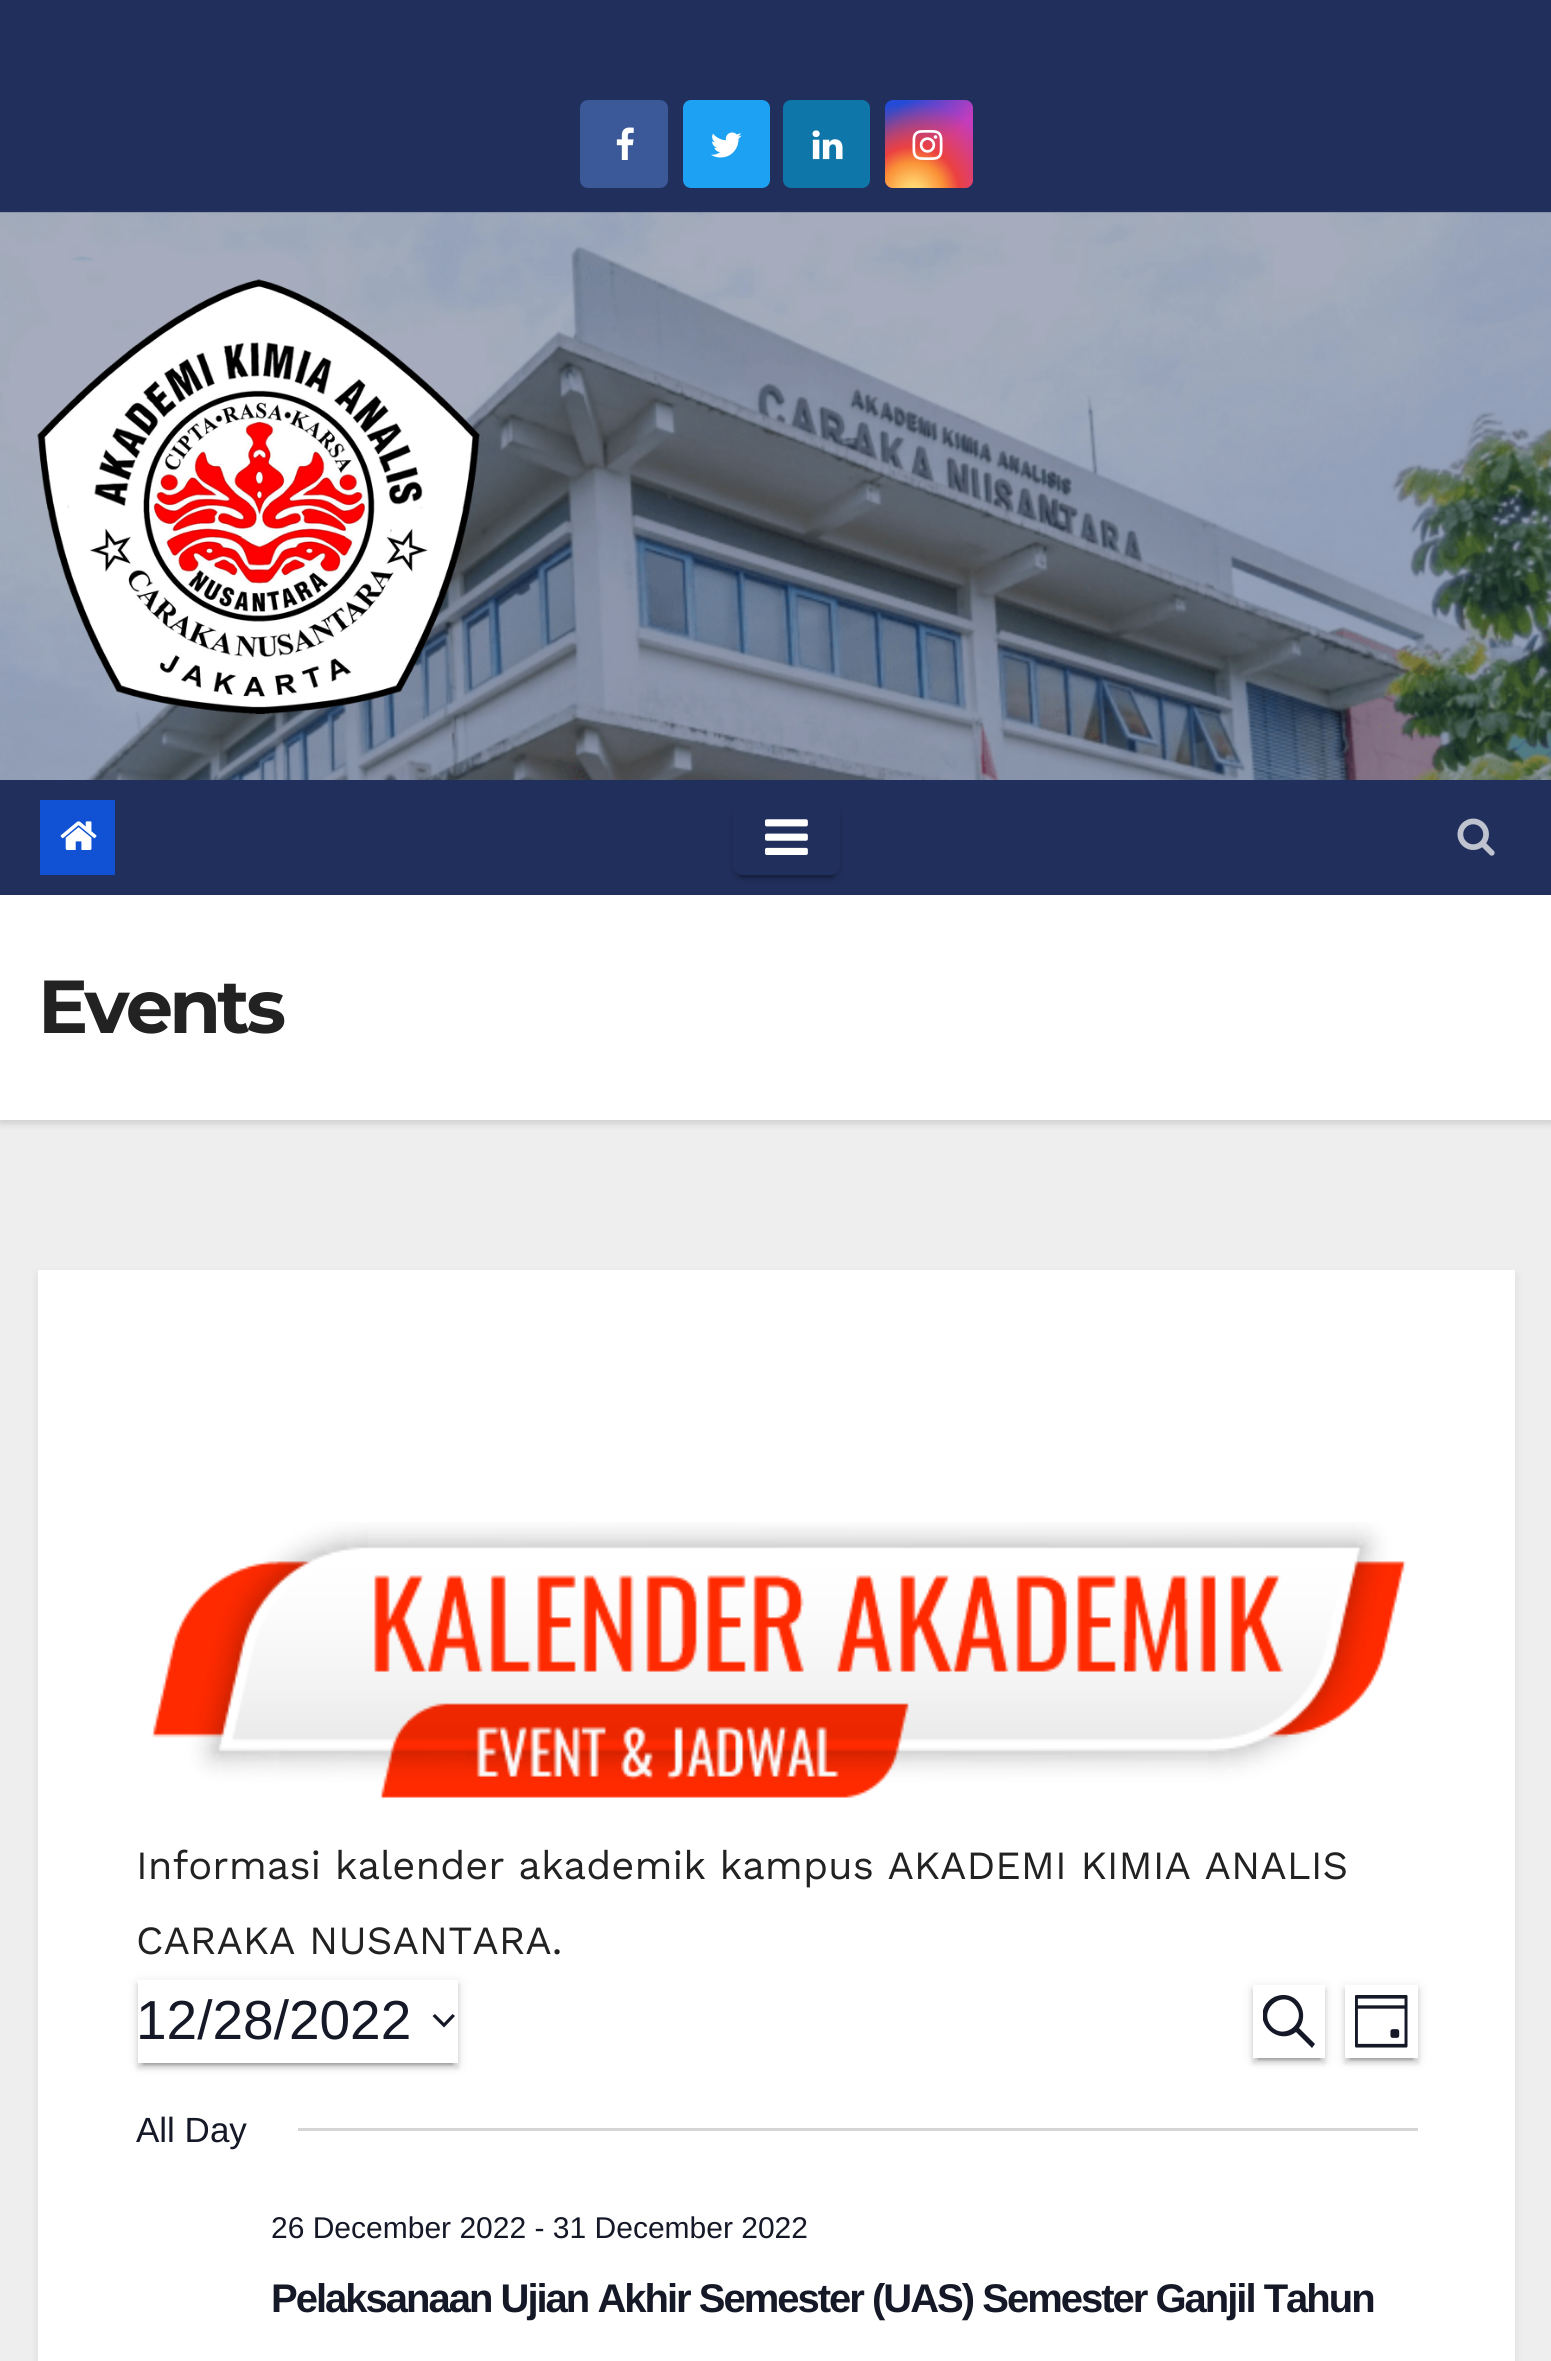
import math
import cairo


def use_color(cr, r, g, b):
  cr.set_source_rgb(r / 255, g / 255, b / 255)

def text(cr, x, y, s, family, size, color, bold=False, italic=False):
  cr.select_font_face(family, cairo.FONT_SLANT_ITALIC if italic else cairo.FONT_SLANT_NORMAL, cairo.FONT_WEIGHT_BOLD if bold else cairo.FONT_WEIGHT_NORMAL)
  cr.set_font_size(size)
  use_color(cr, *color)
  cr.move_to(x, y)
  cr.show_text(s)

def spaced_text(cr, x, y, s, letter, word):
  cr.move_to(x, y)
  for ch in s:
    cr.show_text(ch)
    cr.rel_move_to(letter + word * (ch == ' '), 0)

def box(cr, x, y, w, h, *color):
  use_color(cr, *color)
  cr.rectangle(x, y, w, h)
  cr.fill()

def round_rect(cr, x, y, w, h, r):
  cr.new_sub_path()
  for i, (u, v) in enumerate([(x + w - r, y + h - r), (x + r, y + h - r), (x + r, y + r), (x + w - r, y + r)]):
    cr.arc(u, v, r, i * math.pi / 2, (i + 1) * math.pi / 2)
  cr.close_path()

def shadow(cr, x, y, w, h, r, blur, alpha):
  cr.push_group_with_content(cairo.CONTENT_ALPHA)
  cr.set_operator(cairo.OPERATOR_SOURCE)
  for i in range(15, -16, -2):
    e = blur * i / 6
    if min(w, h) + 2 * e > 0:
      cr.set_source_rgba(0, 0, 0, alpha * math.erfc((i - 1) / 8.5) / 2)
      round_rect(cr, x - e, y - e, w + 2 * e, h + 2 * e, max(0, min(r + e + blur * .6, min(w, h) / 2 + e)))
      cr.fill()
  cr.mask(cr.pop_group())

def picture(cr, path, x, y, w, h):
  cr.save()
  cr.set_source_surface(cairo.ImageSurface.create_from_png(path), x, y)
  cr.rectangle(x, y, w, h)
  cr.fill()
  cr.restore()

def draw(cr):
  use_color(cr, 238, 238, 238)
  cr.paint()
  box(cr, 0, 0, 1551, 213, 32, 47, 91)
  use_color(cr, 59, 89, 152)
  round_rect(cr, 580, 100, 88, 88, 8)
  cr.fill()
  picture(cr, "img_01.png", 616, 127, 18, 33)
  use_color(cr, 29, 161, 242)
  round_rect(cr, 683, 100, 87, 88, 8)
  cr.fill()
  picture(cr, "img_02.png", 711, 132, 31, 26)
  use_color(cr, 14, 118, 168)
  round_rect(cr, 783, 100, 87, 88, 8)
  cr.fill()
  picture(cr, "img_03.png", 812, 130, 31, 30)
  gradient = cairo.LinearGradient(885, 100, 973, 188)
  gradient.add_color_stop_rgba(0.12, 0.137, 0.294, 0.843, 1)
  gradient.add_color_stop_rgba(0.58, 0.765, 0.235, 0.745, 1)
  cr.set_source(gradient)
  round_rect(cr, 885, 100, 88, 88, 8)
  cr.fill()
  gradient = cairo.RadialGradient(913, 193, 0, 913, 193, 110)
  gradient.add_color_stop_rgba(0, 1, 0.882, 0.49, 1)
  gradient.add_color_stop_rgba(0.1, 1, 0.804, 0.412, 1)
  gradient.add_color_stop_rgba(0.28, 0.98, 0.569, 0.216, 1)
  gradient.add_color_stop_rgba(0.42, 0.922, 0.255, 0.255, 1)
  gradient.add_color_stop_rgba(0.82, 0.922, 0.255, 0.255, 0)
  cr.set_source(gradient)
  round_rect(cr, 885, 100, 88, 88, 8)
  cr.fill()
  picture(cr, "img_04.png", 912, 130, 31, 30)
  picture(cr, "img_05.png", 0, 212, 1551, 568)
  picture(cr, "img_06.png", 37, 279, 443, 435)
  use_color(cr, 0, 0, 0)
  shadow(cr, 0, 898, 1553, 225, 0, 4, 0.15)
  box(cr, 0, 780, 1551, 115, 32, 47, 91)
  box(cr, 40, 800, 75, 75, 17, 81, 211)
  picture(cr, "img_07.png", 60, 821, 37, 29)
  cr.save()
  cr.set_fill_rule(cairo.FILL_RULE_EVEN_ODD)
  cr.new_path()
  cr.move_to(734, 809)
  cr.line_to(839, 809)
  cr.line_to(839, 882)
  cr.line_to(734, 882)
  cr.close_path()
  cr.move_to(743, 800)
  cr.line_to(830, 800)
  cr.curve_to(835.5, 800, 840, 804.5, 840, 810)
  cr.line_to(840, 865)
  cr.curve_to(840, 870.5, 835.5, 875, 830, 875)
  cr.line_to(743, 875)
  cr.curve_to(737.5, 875, 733, 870.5, 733, 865)
  cr.line_to(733, 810)
  cr.curve_to(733, 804.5, 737.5, 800, 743, 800)
  cr.close_path()
  cr.clip()
  use_color(cr, 0, 0, 0)
  shadow(cr, 738, 813, 97, 65, 5, 1, 0.2)
  cr.restore()
  cr.save()
  cr.set_fill_rule(cairo.FILL_RULE_EVEN_ODD)
  cr.new_path()
  cr.move_to(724, 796)
  cr.line_to(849, 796)
  cr.line_to(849, 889)
  cr.line_to(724, 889)
  cr.close_path()
  cr.move_to(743, 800)
  cr.line_to(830, 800)
  cr.curve_to(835.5, 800, 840, 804.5, 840, 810)
  cr.line_to(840, 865)
  cr.curve_to(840, 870.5, 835.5, 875, 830, 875)
  cr.line_to(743, 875)
  cr.curve_to(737.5, 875, 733, 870.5, 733, 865)
  cr.line_to(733, 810)
  cr.curve_to(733, 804.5, 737.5, 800, 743, 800)
  cr.close_path()
  cr.clip()
  use_color(cr, 0, 0, 0)
  shadow(cr, 733, 805, 107, 75, 10, 2.5, 0.14)
  cr.restore()
  picture(cr, "img_08.png", 765, 819, 43, 36)
  picture(cr, "img_09.png", 1457, 818, 38, 38)
  box(cr, 0, 895, 1551, 225, 255, 255, 255)
  use_color(cr, 0, 0, 0)
  shadow(cr, 38, 1275, 1477, 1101, 0, 5, 0.08)
  box(cr, 38, 1270, 1477, 1091, 255, 255, 255)
  picture(cr, "img_10.png", 151, 1522, 1256, 276)
  cr.save()
  cr.set_fill_rule(cairo.FILL_RULE_EVEN_ODD)
  cr.new_path()
  cr.move_to(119, 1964)
  cr.line_to(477, 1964)
  cr.line_to(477, 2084)
  cr.line_to(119, 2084)
  cr.close_path()
  cr.move_to(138, 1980)
  cr.line_to(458, 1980)
  cr.line_to(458, 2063)
  cr.line_to(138, 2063)
  cr.close_path()
  cr.clip()
  use_color(cr, 0, 0, 0)
  shadow(cr, 138, 1983, 320, 82, 0, 6, 0.12)
  cr.restore()
  cr.save()
  cr.set_fill_rule(cairo.FILL_RULE_EVEN_ODD)
  cr.new_path()
  cr.move_to(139, 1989)
  cr.line_to(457, 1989)
  cr.line_to(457, 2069)
  cr.line_to(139, 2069)
  cr.close_path()
  cr.move_to(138, 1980)
  cr.line_to(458, 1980)
  cr.line_to(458, 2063)
  cr.line_to(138, 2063)
  cr.close_path()
  cr.clip()
  use_color(cr, 0, 0, 0)
  shadow(cr, 143, 1993, 310, 72, 0, 1, 0.2)
  cr.restore()
  cr.save()
  cr.set_fill_rule(cairo.FILL_RULE_EVEN_ODD)
  cr.new_path()
  cr.move_to(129, 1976)
  cr.line_to(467, 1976)
  cr.line_to(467, 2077)
  cr.line_to(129, 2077)
  cr.close_path()
  cr.move_to(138, 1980)
  cr.line_to(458, 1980)
  cr.line_to(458, 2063)
  cr.line_to(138, 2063)
  cr.close_path()
  cr.clip()
  use_color(cr, 0, 0, 0)
  shadow(cr, 138, 1985, 320, 83, 0, 2.5, 0.14)
  cr.restore()
  use_color(cr, 20, 24, 39)
  cr.new_path()
  cr.move_to(435, 2014)
  cr.line_to(444, 2023)
  cr.line_to(452.5, 2014)
  cr.line_to(455, 2016)
  cr.line_to(444, 2027.5)
  cr.line_to(432.5, 2016)
  cr.close_path()
  cr.fill()
  cr.save()
  cr.set_fill_rule(cairo.FILL_RULE_EVEN_ODD)
  cr.new_path()
  cr.move_to(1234, 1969)
  cr.line_to(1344, 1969)
  cr.line_to(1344, 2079)
  cr.line_to(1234, 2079)
  cr.close_path()
  cr.move_to(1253, 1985)
  cr.line_to(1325, 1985)
  cr.line_to(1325, 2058)
  cr.line_to(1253, 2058)
  cr.close_path()
  cr.clip()
  use_color(cr, 0, 0, 0)
  shadow(cr, 1253, 1988, 72, 72, 0, 6, 0.12)
  cr.restore()
  cr.save()
  cr.set_fill_rule(cairo.FILL_RULE_EVEN_ODD)
  cr.new_path()
  cr.move_to(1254, 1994)
  cr.line_to(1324, 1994)
  cr.line_to(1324, 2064)
  cr.line_to(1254, 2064)
  cr.close_path()
  cr.move_to(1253, 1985)
  cr.line_to(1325, 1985)
  cr.line_to(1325, 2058)
  cr.line_to(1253, 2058)
  cr.close_path()
  cr.clip()
  use_color(cr, 0, 0, 0)
  shadow(cr, 1258, 1998, 62, 62, 0, 1, 0.2)
  cr.restore()
  cr.save()
  cr.set_fill_rule(cairo.FILL_RULE_EVEN_ODD)
  cr.new_path()
  cr.move_to(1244, 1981)
  cr.line_to(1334, 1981)
  cr.line_to(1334, 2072)
  cr.line_to(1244, 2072)
  cr.close_path()
  cr.move_to(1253, 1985)
  cr.line_to(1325, 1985)
  cr.line_to(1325, 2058)
  cr.line_to(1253, 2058)
  cr.close_path()
  cr.clip()
  use_color(cr, 0, 0, 0)
  shadow(cr, 1253, 1990, 72, 73, 0, 2.5, 0.14)
  cr.restore()
  cr.save()
  cr.rectangle(1263, 1995, 52, 53)
  cr.clip()
  cr.new_path()
  cr.move_to(1315, 2044)
  cr.line_to(1299, 2028)
  cr.curve_to(1306, 2019, 1304, 2005, 1294, 1998)
  cr.curve_to(1289, 1995, 1283, 1994, 1277, 1996)
  cr.curve_to(1273, 1997, 1269, 2000, 1266, 2004)
  cr.curve_to(1253, 2023, 1278, 2046, 1296, 2032)
  cr.line_to(1312, 2048)
  cr.close_path()
  cr.move_to(1272, 2027)
  cr.curve_to(1257, 2011, 1281, 1990, 1294, 2004)
  cr.curve_to(1309, 2020, 1286, 2041, 1272, 2027)
  cr.close_path()
  cr.fill()
  cr.restore()
  cr.save()
  cr.set_fill_rule(cairo.FILL_RULE_EVEN_ODD)
  cr.new_path()
  cr.move_to(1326, 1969)
  cr.line_to(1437, 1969)
  cr.line_to(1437, 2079)
  cr.line_to(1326, 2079)
  cr.close_path()
  cr.move_to(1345, 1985)
  cr.line_to(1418, 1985)
  cr.line_to(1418, 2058)
  cr.line_to(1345, 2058)
  cr.close_path()
  cr.clip()
  use_color(cr, 0, 0, 0)
  shadow(cr, 1345, 1988, 73, 72, 0, 6, 0.12)
  cr.restore()
  cr.save()
  cr.set_fill_rule(cairo.FILL_RULE_EVEN_ODD)
  cr.new_path()
  cr.move_to(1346, 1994)
  cr.line_to(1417, 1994)
  cr.line_to(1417, 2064)
  cr.line_to(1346, 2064)
  cr.close_path()
  cr.move_to(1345, 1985)
  cr.line_to(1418, 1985)
  cr.line_to(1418, 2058)
  cr.line_to(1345, 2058)
  cr.close_path()
  cr.clip()
  use_color(cr, 0, 0, 0)
  shadow(cr, 1350, 1998, 63, 62, 0, 1, 0.2)
  cr.restore()
  cr.save()
  cr.set_fill_rule(cairo.FILL_RULE_EVEN_ODD)
  cr.new_path()
  cr.move_to(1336, 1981)
  cr.line_to(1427, 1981)
  cr.line_to(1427, 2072)
  cr.line_to(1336, 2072)
  cr.close_path()
  cr.move_to(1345, 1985)
  cr.line_to(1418, 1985)
  cr.line_to(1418, 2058)
  cr.line_to(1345, 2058)
  cr.close_path()
  cr.clip()
  use_color(cr, 0, 0, 0)
  shadow(cr, 1345, 1990, 73, 73, 0, 2.5, 0.14)
  cr.restore()
  picture(cr, "img_11.png", 1355, 1995, 53, 53)
  box(cr, 298, 2128, 1120, 3, 213, 213, 213)
  cr.select_font_face("Montserrat", cairo.FONT_SLANT_NORMAL, cairo.FONT_WEIGHT_BOLD)
  cr.set_font_size(75)
  use_color(cr, 34, 34, 34)
  spaced_text(cr, 38, 1033, "Events", -3.75, 0)
  text(cr, 136, 1879, "Informasi kalender akademik kampus AKADEMI KIMIA ANALIS", "Work Sans", 40, (34, 34, 34))
  text(cr, 136, 1954, "CARAKA NUSANTARA.", "Work Sans", 40, (34, 34, 34))
  text(cr, 136, 2039, "12/28/2022", "Liberation Sans", 55, (20, 24, 39))
  text(cr, 136, 2142, "All Day", "Liberation Sans", 35, (20, 24, 39))
  text(cr, 271, 2238, "26 December 2022 - 31 December 2022", "Liberation Sans", 30, (20, 24, 39))
  cr.select_font_face("Liberation Sans", cairo.FONT_SLANT_NORMAL, cairo.FONT_WEIGHT_BOLD)
  cr.set_font_size(40)
  spaced_text(cr, 271, 2312, "Pelaksanaan Ujian Akhir Semester (UAS) Semester Ganjil Tahun", -2, 0)


surface = cairo.ImageSurface(cairo.FORMAT_RGB24, 1551, 2361)
cr = cairo.Context(surface)
options = cairo.FontOptions()
options.set_hint_metrics(cairo.HINT_METRICS_OFF)
options.set_hint_style(cairo.HINT_STYLE_NONE)
cr.set_font_options(options)
cr.set_miter_limit(4)
draw(cr)
surface.write_to_png("out.png")
